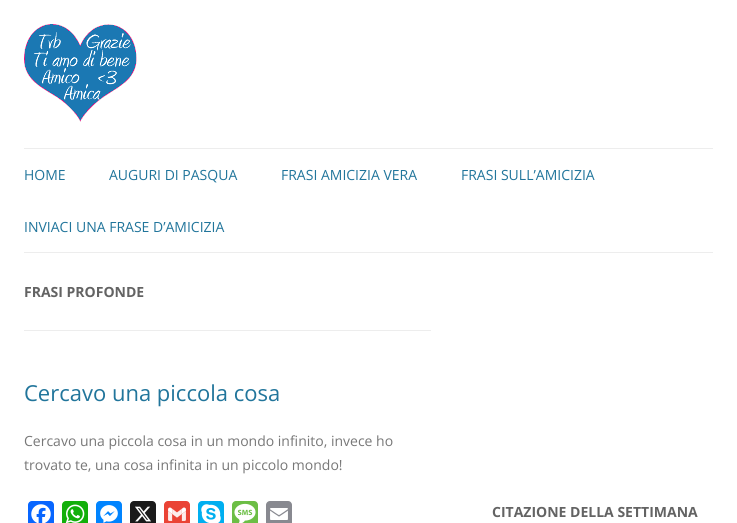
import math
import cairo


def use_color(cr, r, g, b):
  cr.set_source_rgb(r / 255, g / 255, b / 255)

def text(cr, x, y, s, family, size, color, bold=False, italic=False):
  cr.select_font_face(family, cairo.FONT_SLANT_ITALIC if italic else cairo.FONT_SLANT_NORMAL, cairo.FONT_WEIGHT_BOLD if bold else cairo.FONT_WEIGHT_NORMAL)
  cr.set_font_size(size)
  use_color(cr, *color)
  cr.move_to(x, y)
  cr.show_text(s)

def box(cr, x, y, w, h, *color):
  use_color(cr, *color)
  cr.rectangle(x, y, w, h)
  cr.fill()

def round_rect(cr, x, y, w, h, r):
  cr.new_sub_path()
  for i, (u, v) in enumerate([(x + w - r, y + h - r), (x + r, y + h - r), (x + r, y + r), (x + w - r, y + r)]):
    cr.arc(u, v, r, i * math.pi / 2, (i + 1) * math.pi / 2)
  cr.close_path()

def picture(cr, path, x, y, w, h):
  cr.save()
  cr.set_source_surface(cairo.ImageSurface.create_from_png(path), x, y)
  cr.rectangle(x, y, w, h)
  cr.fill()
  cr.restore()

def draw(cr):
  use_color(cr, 255, 255, 255)
  cr.paint()
  picture(cr, "img_01.png", 24, 24, 113, 98)
  box(cr, 24, 148, 689, 1, 237, 237, 237)
  box(cr, 24, 252, 689, 1, 237, 237, 237)
  box(cr, 24, 330, 407, 1, 237, 237, 237)
  use_color(cr, 8, 102, 255)
  round_rect(cr, 28, 501, 26, 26, 4)
  cr.fill()
  picture(cr, "img_02.png", 31, 504, 20, 19)
  use_color(cr, 18, 175, 10)
  round_rect(cr, 62, 501, 26, 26, 4)
  cr.fill()
  picture(cr, "img_03.png", 65, 504, 20, 19)
  use_color(cr, 0, 132, 255)
  round_rect(cr, 96, 501, 26, 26, 4)
  cr.fill()
  picture(cr, "img_04.png", 100, 505, 18, 18)
  use_color(cr, 26, 26, 26)
  round_rect(cr, 130, 501, 26, 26, 4)
  cr.fill()
  picture(cr, "img_05.png", 135, 506, 16, 16)
  use_color(cr, 234, 67, 53)
  round_rect(cr, 164, 501, 26, 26, 4)
  cr.fill()
  picture(cr, "img_06.png", 168, 507, 18, 14)
  use_color(cr, 0, 175, 240)
  round_rect(cr, 198, 501, 26, 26, 4)
  cr.fill()
  picture(cr, "img_07.png", 201, 504, 20, 19)
  use_color(cr, 108, 190, 69)
  round_rect(cr, 232, 501, 26, 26, 4)
  cr.fill()
  picture(cr, "img_08.png", 234, 503, 22, 20)
  use_color(cr, 136, 137, 144)
  round_rect(cr, 266, 501, 26, 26, 4)
  cr.fill()
  picture(cr, "img_09.png", 270, 508, 18, 12)
  text(cr, 24, 180, "HOME", "Open Sans", 14, (33, 117, 155))
  text(cr, 109, 180, "AUGURI DI PASQUA", "Open Sans", 14, (33, 117, 155))
  text(cr, 281, 180, "FRASI AMICIZIA VERA", "Open Sans", 14, (33, 117, 155))
  text(cr, 461, 180, "FRASI SULL’AMICIZIA", "Open Sans", 14, (33, 117, 155))
  text(cr, 24, 232, "INVIACI UNA FRASE D’AMICIZIA", "Open Sans", 14, (33, 117, 155))
  text(cr, 24, 297, "FRASI PROFONDE", "Open Sans", 14, (99, 99, 99), bold=True)
  text(cr, 24, 401, "Cercavo una piccola cosa", "Open Sans", 22, (33, 117, 155))
  text(cr, 24, 446, "Cercavo una piccola cosa in un mondo infinito, invece ho", "Open Sans", 14, (119, 119, 119))
  text(cr, 24, 470, "trovato te, una cosa infinita in un piccolo mondo!", "Open Sans", 14, (119, 119, 119))
  text(cr, 492, 517, "CITAZIONE DELLA SETTIMANA", "Open Sans", 14, (99, 99, 99), bold=True)


surface = cairo.ImageSurface(cairo.FORMAT_RGB24, 737, 523)
cr = cairo.Context(surface)
options = cairo.FontOptions()
options.set_hint_metrics(cairo.HINT_METRICS_OFF)
options.set_hint_style(cairo.HINT_STYLE_NONE)
cr.set_font_options(options)
cr.set_miter_limit(4)
draw(cr)
surface.write_to_png("out.png")
